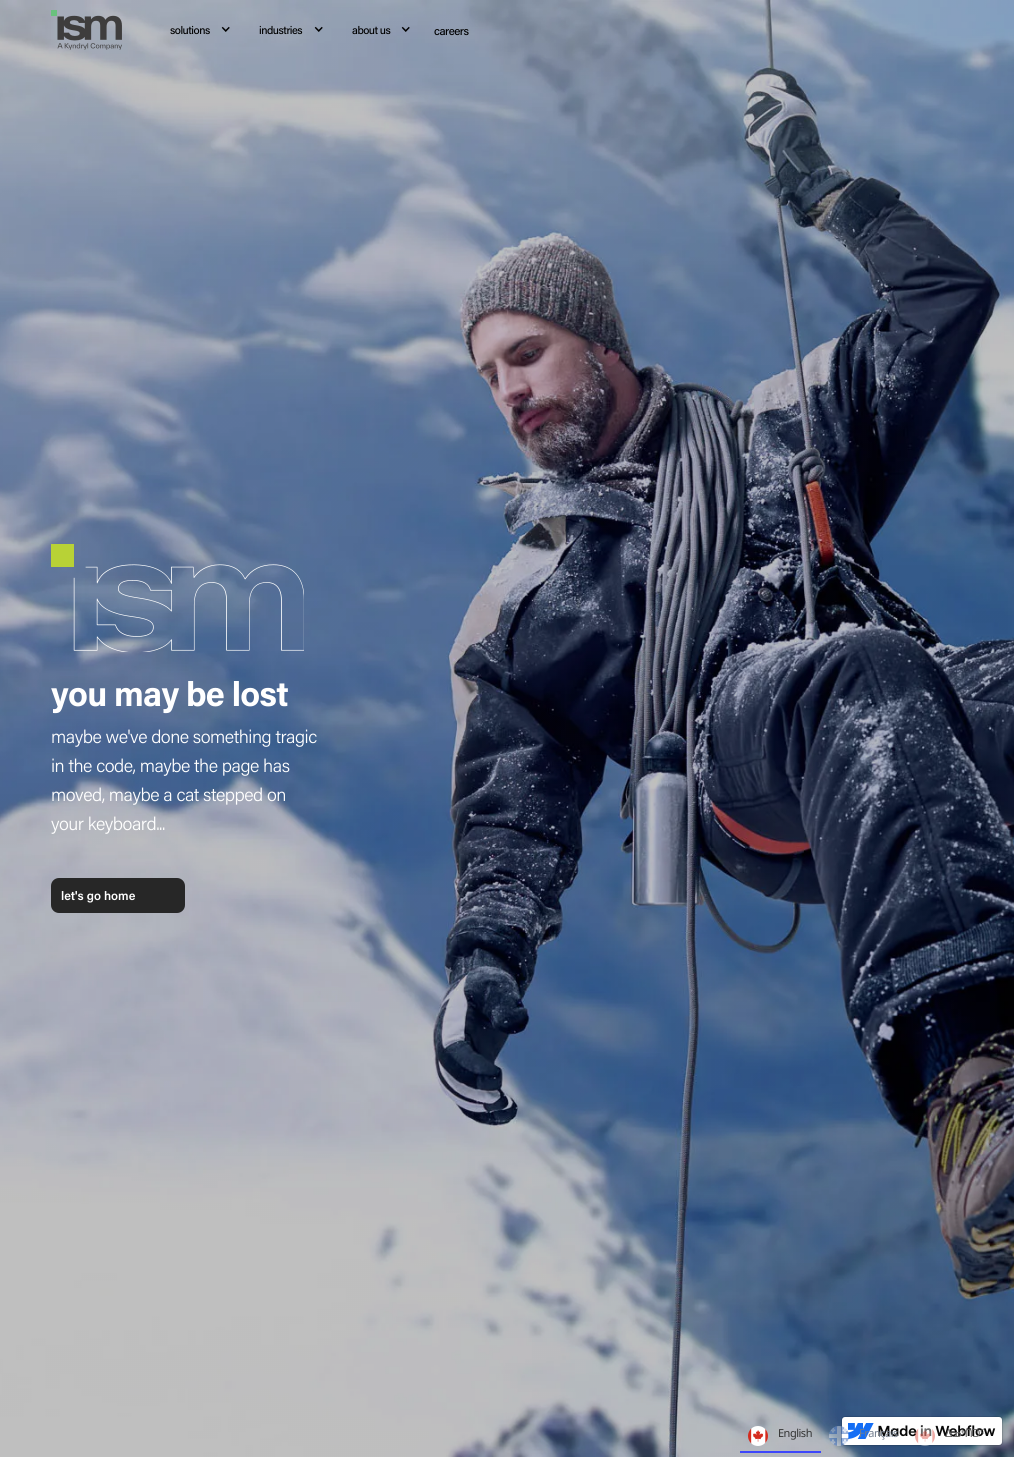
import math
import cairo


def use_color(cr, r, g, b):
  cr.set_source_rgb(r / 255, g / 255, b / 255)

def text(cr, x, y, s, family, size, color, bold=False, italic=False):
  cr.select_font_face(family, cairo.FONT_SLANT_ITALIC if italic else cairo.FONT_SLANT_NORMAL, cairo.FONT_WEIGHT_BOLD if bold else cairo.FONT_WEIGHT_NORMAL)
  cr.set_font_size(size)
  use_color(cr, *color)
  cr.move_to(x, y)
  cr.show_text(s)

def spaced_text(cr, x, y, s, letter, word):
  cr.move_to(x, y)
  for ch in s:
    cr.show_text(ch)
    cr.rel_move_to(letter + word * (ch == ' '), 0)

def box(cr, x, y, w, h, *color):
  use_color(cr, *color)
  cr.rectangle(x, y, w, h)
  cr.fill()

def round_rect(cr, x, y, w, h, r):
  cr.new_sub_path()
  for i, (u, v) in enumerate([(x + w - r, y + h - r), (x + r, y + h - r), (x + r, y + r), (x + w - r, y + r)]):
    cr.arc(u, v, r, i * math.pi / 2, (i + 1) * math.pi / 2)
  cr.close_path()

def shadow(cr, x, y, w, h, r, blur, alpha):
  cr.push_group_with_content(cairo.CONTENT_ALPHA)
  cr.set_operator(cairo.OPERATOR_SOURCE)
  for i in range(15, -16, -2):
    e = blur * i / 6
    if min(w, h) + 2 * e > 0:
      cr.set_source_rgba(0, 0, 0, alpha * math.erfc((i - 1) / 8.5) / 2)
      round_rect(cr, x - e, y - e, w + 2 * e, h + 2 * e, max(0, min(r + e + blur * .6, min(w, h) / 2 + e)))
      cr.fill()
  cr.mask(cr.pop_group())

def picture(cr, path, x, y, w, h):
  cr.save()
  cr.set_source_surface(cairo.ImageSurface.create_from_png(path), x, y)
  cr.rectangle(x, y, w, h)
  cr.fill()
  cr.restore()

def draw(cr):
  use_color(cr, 255, 255, 255)
  cr.paint()
  picture(cr, "img_01.png", 0, 0, 1014, 1457)
  picture(cr, "img_02.png", 51, 10, 71, 40)
  picture(cr, "img_03.png", 221, 26, 9, 6)
  picture(cr, "img_04.png", 314, 26, 9, 6)
  picture(cr, "img_05.png", 401, 26, 9, 6)
  picture(cr, "img_06.png", 51, 544, 253, 108)
  use_color(cr, 39, 39, 39)
  round_rect(cr, 51, 878, 134, 35, 8)
  cr.fill()
  use_color(cr, 0, 0, 0)
  shadow(cr, 842, 1418, 160, 28, 3, 1.5, 0.1)
  round_rect(cr, 841.5, 1416.5, 161, 29, 3.5)
  cr.set_source_rgba(0, 0, 0, 0.1)
  cr.set_line_width(1)
  cr.stroke()
  use_color(cr, 255, 255, 255)
  round_rect(cr, 842, 1417, 160, 28, 3)
  cr.fill()
  picture(cr, "img_07.png", 848, 1423, 26, 16)
  picture(cr, "img_08.png", 878, 1425, 118, 12)
  picture(cr, "img_09.png", 748, 1426, 20, 20)
  box(cr, 740, 1451, 81, 2, 61, 70, 251)
  picture(cr, "img_10.png", 829, 1426, 20, 20)
  picture(cr, "img_11.png", 915, 1426, 20, 20)
  cr.select_font_face("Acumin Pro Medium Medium")
  cr.set_font_size(11)
  use_color(cr, 0, 0, 0)
  spaced_text(cr, 170, 34, "solutions", -0.5, 0)
  spaced_text(cr, 259, 34, "industries", -0.5, 0)
  spaced_text(cr, 352, 34, "about us", -0.5, 0)
  cr.set_font_size(11.5)
  spaced_text(cr, 434, 35, "careers", -0.5, 0)
  cr.select_font_face("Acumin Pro", cairo.FONT_SLANT_NORMAL, cairo.FONT_WEIGHT_BOLD)
  cr.set_font_size(34.25)
  use_color(cr, 255, 255, 255)
  spaced_text(cr, 51, 706, "you may be lost", -0.75, 0)
  cr.select_font_face("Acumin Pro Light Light")
  cr.set_font_size(18.25)
  spaced_text(cr, 51, 743, "maybe we've done something tragic", -0.5, 0)
  spaced_text(cr, 51, 772, "in the code, maybe the page has", -0.5, 0)
  spaced_text(cr, 51, 801, "moved, maybe a cat stepped on", -0.5, 0)
  spaced_text(cr, 51, 830, "your keyboard...", -0.5, 0)
  text(cr, 61, 900, "let's go home", "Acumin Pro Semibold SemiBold", 12.25, (255, 255, 255))
  cr.select_font_face("Noto Sans")
  cr.set_font_size(11)
  use_color(cr, 51, 51, 51)
  spaced_text(cr, 778, 1437, "English", -0.5, 0)
  use_color(cr, 113, 124, 140)
  spaced_text(cr, 859, 1437, "Français", -0.5, 0)
  cr.select_font_face("DejaVu Sans")
  use_color(cr, 104, 104, 104)
  spaced_text(cr, 945, 1437, "ᐃᓄᒃᑎᑐᑦ", -0.5, 0)


surface = cairo.ImageSurface(cairo.FORMAT_RGB24, 1014, 1457)
cr = cairo.Context(surface)
options = cairo.FontOptions()
options.set_hint_metrics(cairo.HINT_METRICS_OFF)
options.set_hint_style(cairo.HINT_STYLE_NONE)
cr.set_font_options(options)
cr.set_miter_limit(4)
draw(cr)
surface.write_to_png("out.png")
